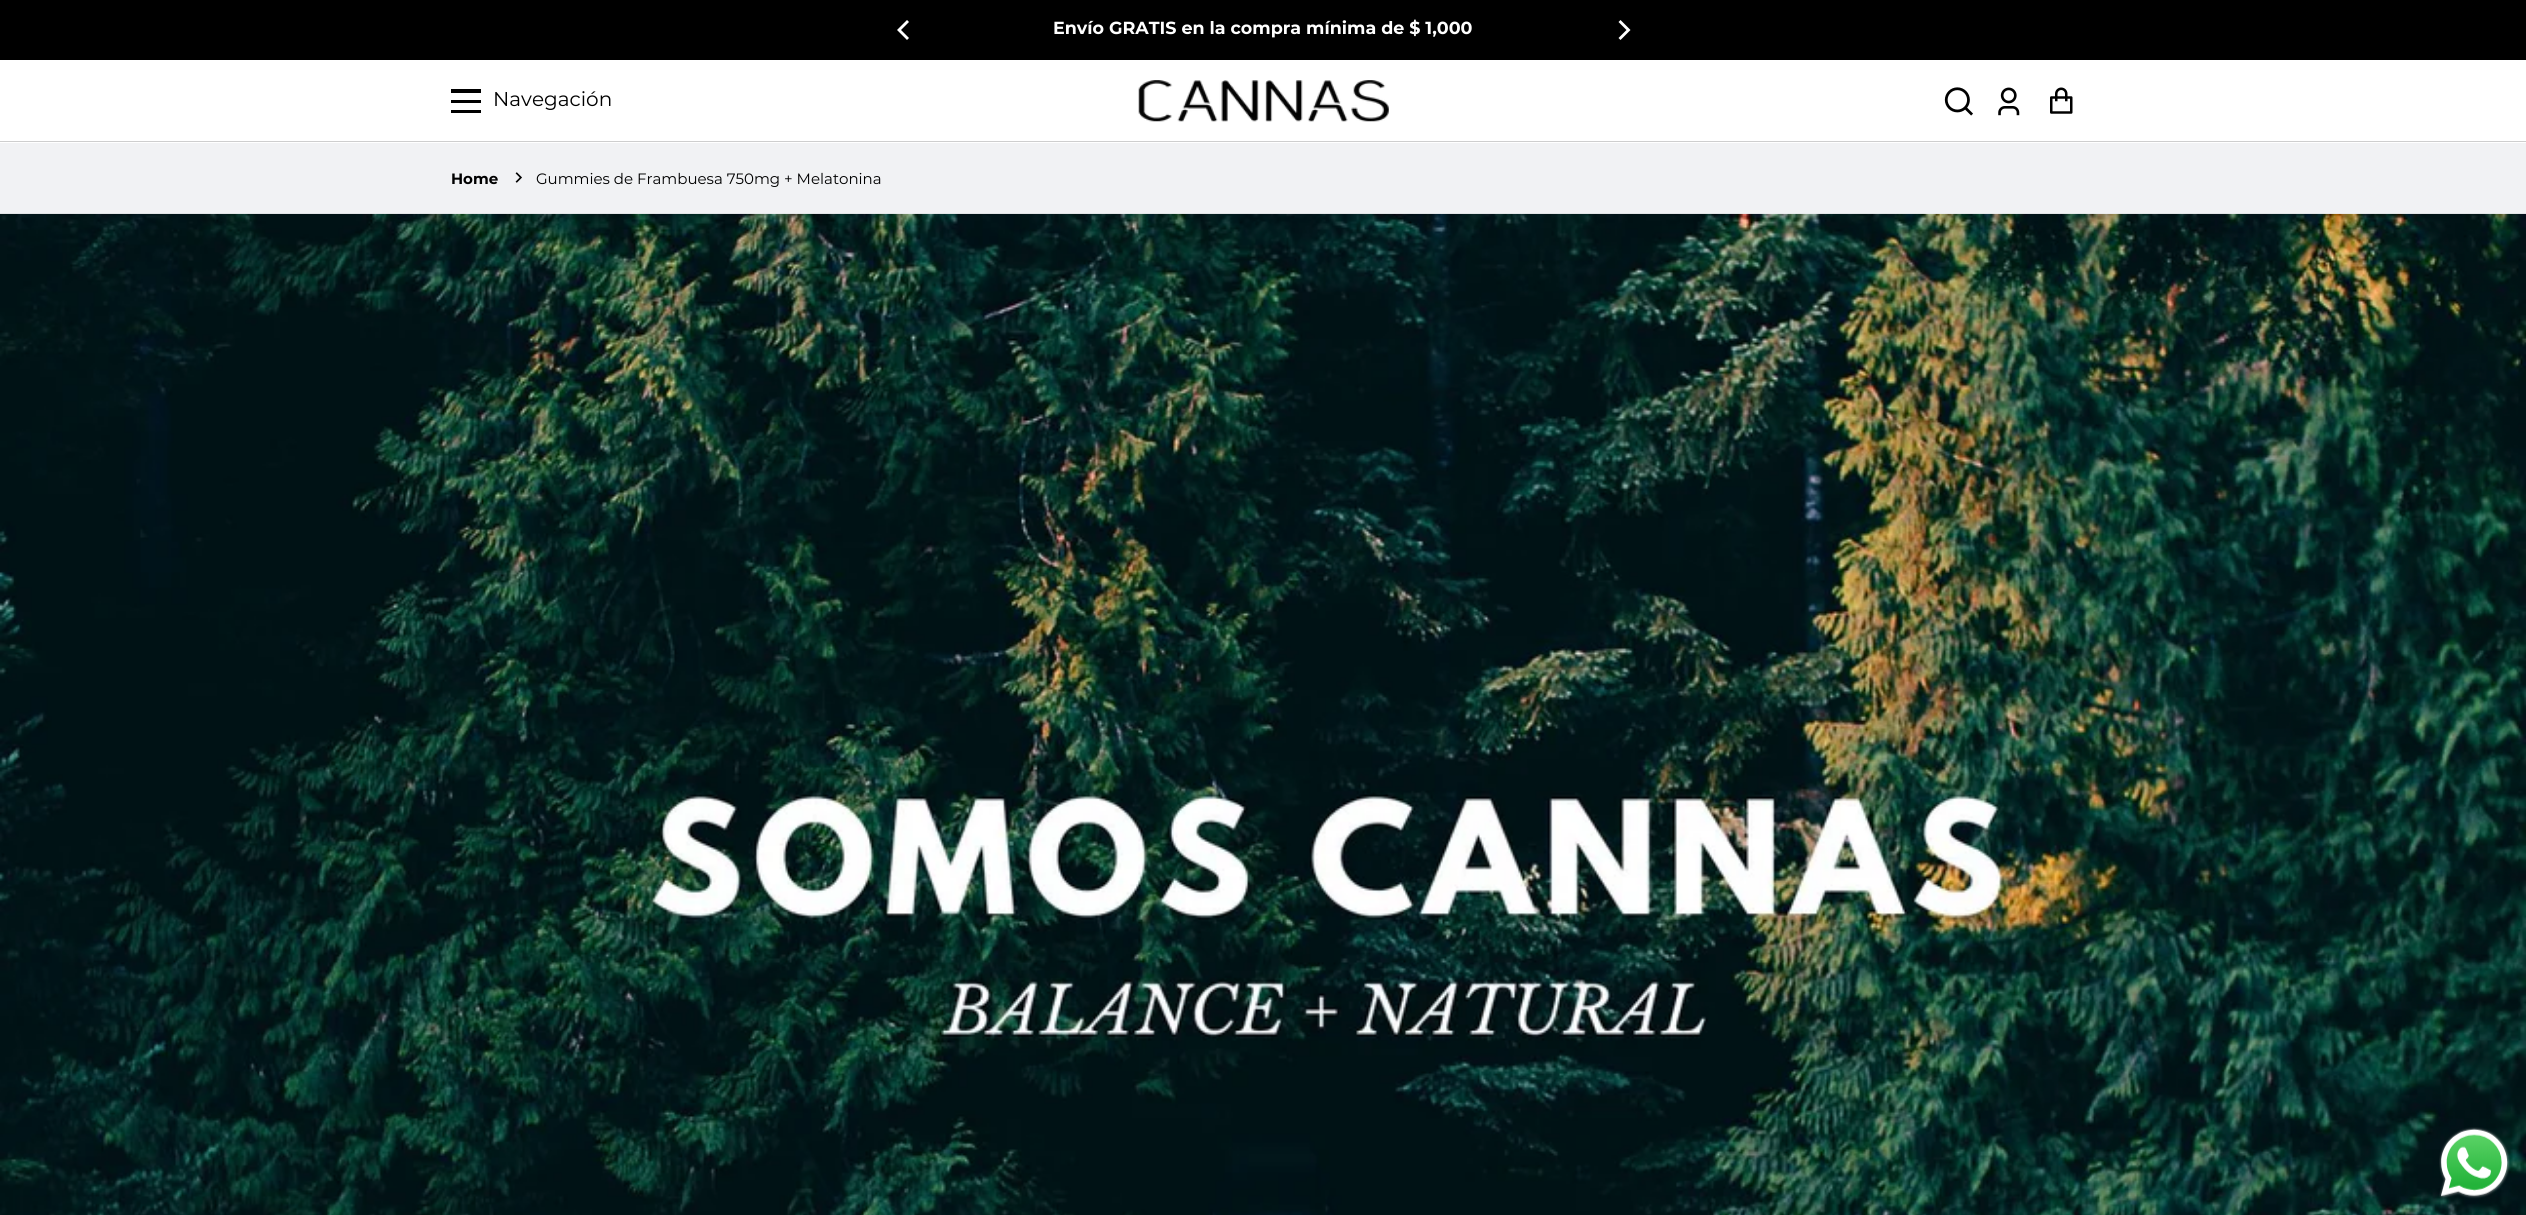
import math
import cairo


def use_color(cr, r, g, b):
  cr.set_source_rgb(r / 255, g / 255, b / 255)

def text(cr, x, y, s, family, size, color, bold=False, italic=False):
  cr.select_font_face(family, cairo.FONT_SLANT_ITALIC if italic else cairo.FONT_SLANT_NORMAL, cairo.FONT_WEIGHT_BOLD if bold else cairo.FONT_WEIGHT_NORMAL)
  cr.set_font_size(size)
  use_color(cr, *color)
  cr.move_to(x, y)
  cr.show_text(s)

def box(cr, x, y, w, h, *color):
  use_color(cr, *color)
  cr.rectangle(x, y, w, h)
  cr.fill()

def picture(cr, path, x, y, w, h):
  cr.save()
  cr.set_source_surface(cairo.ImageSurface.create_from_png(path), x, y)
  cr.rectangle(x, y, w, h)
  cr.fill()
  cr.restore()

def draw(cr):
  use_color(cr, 241, 242, 244)
  cr.paint()
  box(cr, 0, 0, 2526, 60, 0, 0, 0)
  use_color(cr, 255, 255, 255)
  cr.new_path()
  cr.move_to(897, 30)
  cr.line_to(907, 40)
  cr.line_to(909, 38)
  cr.line_to(901, 30)
  cr.line_to(909, 22)
  cr.line_to(907, 20)
  cr.close_path()
  cr.fill()
  cr.new_path()
  cr.move_to(1630.5, 30)
  cr.line_to(1620.5, 20)
  cr.line_to(1618.5, 22)
  cr.line_to(1626.5, 30)
  cr.line_to(1618.5, 38)
  cr.line_to(1620.5, 40)
  cr.close_path()
  cr.fill()
  box(cr, 0, 60, 2526, 83, 255, 255, 255)
  box(cr, 0, 141, 2526, 1, 206, 206, 206)
  box(cr, 451, 110, 30, 3, 0, 0, 0)
  box(cr, 451, 100, 30, 3, 0, 0, 0)
  box(cr, 451, 89, 30, 4, 0, 0, 0)
  picture(cr, "img_01.png", 1138, 80, 251, 42)
  picture(cr, "img_02.png", 1944, 87, 29, 29)
  picture(cr, "img_03.png", 1998, 87, 22, 29)
  picture(cr, "img_04.png", 2050, 87, 23, 27)
  picture(cr, "img_05.png", 515, 172, 7, 11)
  picture(cr, "img_06.png", 0, 213, 2526, 1002)
  picture(cr, "img_07.png", 2439, 1127, 71, 72)
  text(cr, 1053, 34, "Envío GRATIS en la compra mínima de $ 1,000", "Montserrat", 17.5, (255, 255, 255), bold=True)
  text(cr, 493, 106, "Navegación", "Montserrat", 20, (0, 0, 0))
  text(cr, 451, 184, "Home", "Montserrat", 15, (0, 0, 0), bold=True)
  text(cr, 536, 184, "Gummies de Frambuesa 750mg + Melatonina", "Montserrat", 15, (0, 0, 0))


surface = cairo.ImageSurface(cairo.FORMAT_RGB24, 2526, 1215)
cr = cairo.Context(surface)
options = cairo.FontOptions()
options.set_hint_metrics(cairo.HINT_METRICS_OFF)
options.set_hint_style(cairo.HINT_STYLE_NONE)
cr.set_font_options(options)
cr.set_miter_limit(4)
draw(cr)
surface.write_to_png("out.png")
